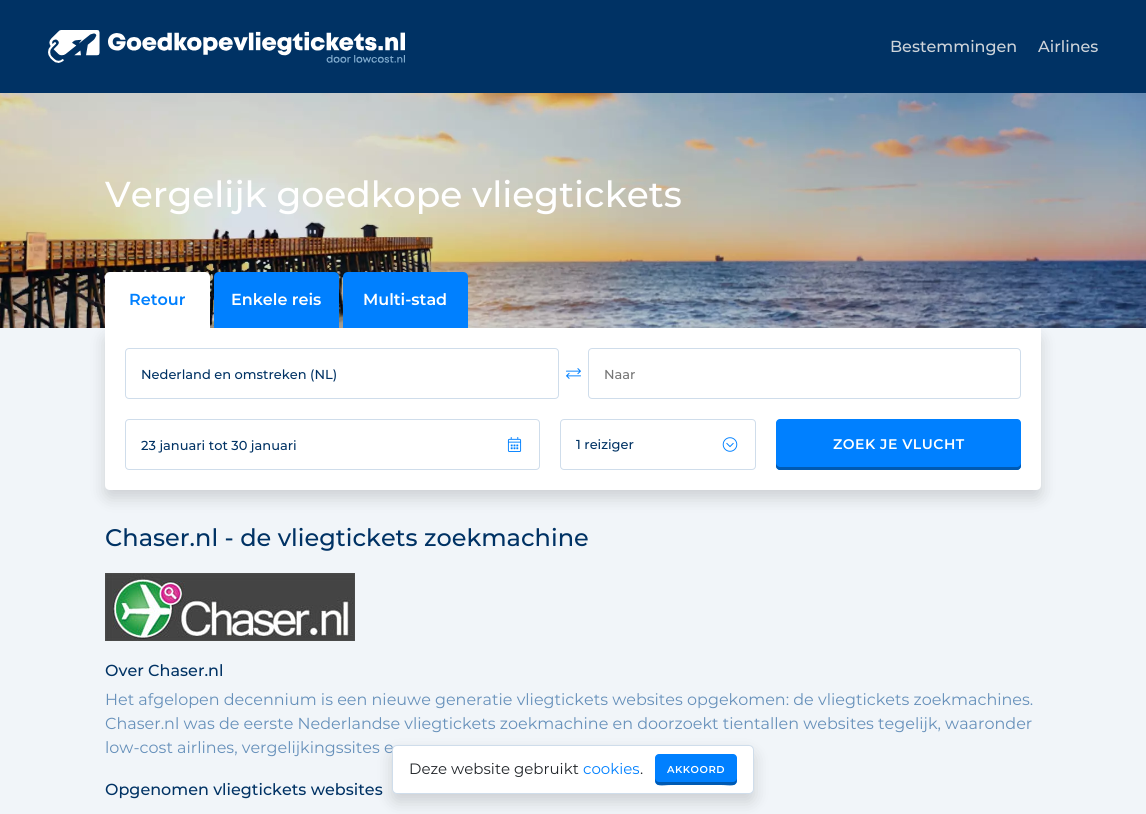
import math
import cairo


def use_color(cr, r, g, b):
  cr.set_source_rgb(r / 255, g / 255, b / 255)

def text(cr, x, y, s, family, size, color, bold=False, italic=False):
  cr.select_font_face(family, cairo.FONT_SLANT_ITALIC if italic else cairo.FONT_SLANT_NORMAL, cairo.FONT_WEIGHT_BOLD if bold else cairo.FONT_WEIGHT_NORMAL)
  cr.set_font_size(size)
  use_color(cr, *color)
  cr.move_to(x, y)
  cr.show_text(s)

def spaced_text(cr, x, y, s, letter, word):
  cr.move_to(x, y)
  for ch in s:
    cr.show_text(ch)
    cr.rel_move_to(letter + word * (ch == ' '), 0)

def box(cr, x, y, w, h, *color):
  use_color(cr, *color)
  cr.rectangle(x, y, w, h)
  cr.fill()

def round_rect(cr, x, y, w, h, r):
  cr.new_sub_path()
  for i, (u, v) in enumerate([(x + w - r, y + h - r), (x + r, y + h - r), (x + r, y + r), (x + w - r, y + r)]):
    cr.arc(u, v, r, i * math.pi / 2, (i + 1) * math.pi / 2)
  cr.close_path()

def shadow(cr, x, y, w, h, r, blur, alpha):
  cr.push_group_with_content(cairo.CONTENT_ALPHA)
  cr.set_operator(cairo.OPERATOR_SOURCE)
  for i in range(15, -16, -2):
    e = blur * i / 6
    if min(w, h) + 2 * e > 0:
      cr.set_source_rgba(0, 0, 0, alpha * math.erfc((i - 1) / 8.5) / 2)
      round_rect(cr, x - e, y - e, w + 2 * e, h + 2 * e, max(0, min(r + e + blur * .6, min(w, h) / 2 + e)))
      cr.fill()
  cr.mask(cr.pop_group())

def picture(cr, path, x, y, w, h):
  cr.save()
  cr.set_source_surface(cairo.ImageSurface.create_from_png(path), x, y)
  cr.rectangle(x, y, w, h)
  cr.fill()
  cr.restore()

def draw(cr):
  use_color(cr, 255, 255, 255)
  cr.paint()
  box(cr, 0, 0, 1146, 93, 0, 50, 100)
  picture(cr, "img_01.png", 48, 30, 357, 33)
  picture(cr, "img_02.png", 0, 93, 1146, 235)
  box(cr, 0, 328, 1146, 486, 241, 245, 249)
  use_color(cr, 0, 0, 0)
  shadow(cr, 105, 336, 936, 162, 5, 8, 0.15)
  use_color(cr, 255, 255, 255)
  cr.new_path()
  cr.move_to(105, 328)
  cr.line_to(1041, 328)
  cr.line_to(1041, 485)
  cr.curve_to(1041, 488, 1039, 490, 1036, 490)
  cr.line_to(110, 490)
  cr.curve_to(107, 490, 105, 488, 105, 485)
  cr.close_path()
  cr.fill()
  cr.new_path()
  cr.move_to(110, 272)
  cr.line_to(205, 272)
  cr.curve_to(208, 272, 210, 274, 210, 277)
  cr.line_to(210, 328)
  cr.line_to(105, 328)
  cr.line_to(105, 277)
  cr.curve_to(105, 274, 107, 272, 110, 272)
  cr.close_path()
  cr.fill()
  use_color(cr, 0, 128, 255)
  cr.new_path()
  cr.move_to(219, 272)
  cr.line_to(334, 272)
  cr.curve_to(337, 272, 339, 274, 339, 277)
  cr.line_to(339, 328)
  cr.line_to(214, 328)
  cr.line_to(214, 277)
  cr.curve_to(214, 274, 216, 272, 219, 272)
  cr.close_path()
  cr.fill()
  cr.new_path()
  cr.move_to(348, 272)
  cr.line_to(463, 272)
  cr.curve_to(466, 272, 468, 274, 468, 277)
  cr.line_to(468, 328)
  cr.line_to(343, 328)
  cr.line_to(343, 277)
  cr.curve_to(343, 274, 345, 272, 348, 272)
  cr.close_path()
  cr.fill()
  round_rect(cr, 125.5, 348.5, 433, 50, 3.5)
  use_color(cr, 207, 221, 235)
  cr.set_line_width(1)
  cr.stroke()
  picture(cr, "img_03.png", 566, 368, 15, 11)
  round_rect(cr, 588.5, 348.5, 432, 50, 3.5)
  cr.stroke()
  round_rect(cr, 125.5, 419.5, 414, 50, 3.5)
  cr.stroke()
  picture(cr, "img_04.png", 507, 437, 15, 15)
  round_rect(cr, 560.5, 419.5, 195, 50, 3.5)
  cr.stroke()
  picture(cr, "img_05.png", 722, 437, 16, 15)
  use_color(cr, 0, 128, 255)
  round_rect(cr, 776, 419, 245, 51, 4)
  cr.fill()
  use_color(cr, 0, 90, 179)
  cr.new_path()
  cr.move_to(776, 463)
  cr.line_to(776, 466)
  cr.curve_to(776, 468, 778, 470, 780, 470)
  cr.line_to(1017, 470)
  cr.curve_to(1019, 470, 1021, 468, 1021, 466)
  cr.line_to(1021, 463)
  cr.curve_to(1021, 465, 1019, 467, 1017, 467)
  cr.line_to(780, 467)
  cr.curve_to(778, 467, 776, 465, 776, 463)
  cr.close_path()
  cr.fill()
  picture(cr, "img_06.png", 105, 573, 250, 68)
  use_color(cr, 0, 0, 0)
  shadow(cr, 392, 753, 362, 49, 5, 8, 0.15)
  text(cr, 890, 52, "Bestemmingen", "Montserrat Medium", 16, (206, 212, 218))
  text(cr, 1038, 52, "Airlines", "Montserrat Medium", 16, (206, 212, 218))
  text(cr, 105, 207, "Vergelijk goedkope vliegtickets", "Montserrat Medium", 36, (255, 255, 255))
  text(cr, 129, 305, "Retour", "Montserrat SemiBold", 16, (0, 128, 255))
  text(cr, 231, 305, "Enkele reis", "Montserrat SemiBold", 16, (255, 255, 255))
  text(cr, 363, 305, "Multi-stad", "Montserrat SemiBold", 16, (255, 255, 255))
  text(cr, 141, 379, "Nederland en omstreken (NL)", "Montserrat Medium", 13, (0, 50, 100))
  text(cr, 604, 379, "Naar", "Montserrat Medium", 13, (117, 117, 117))
  text(cr, 141, 450, "23 januari tot 30 januari", "Montserrat Medium", 13, (0, 50, 100))
  text(cr, 576, 449, "1 reiziger", "Montserrat Medium", 13, (0, 50, 100))
  cr.select_font_face("Montserrat SemiBold")
  cr.set_font_size(14)
  use_color(cr, 255, 255, 255)
  spaced_text(cr, 833, 449, "ZOEK JE VLUCHT", 0.5, 0)
  text(cr, 105, 546, "Chaser.nl - de vliegtickets zoekmachine", "Montserrat Medium", 24, (0, 50, 100))
  text(cr, 105, 676, "Over Chaser.nl", "Montserrat Medium", 16, (0, 50, 100))
  text(cr, 105, 705, "Het afgelopen decennium is een nieuwe generatie vliegtickets websites opgekomen: de vliegtickets zoekmachines.", "Montserrat", 16, (102, 144, 186))
  text(cr, 105, 729, "Chaser.nl was de eerste Nederlandse vliegtickets zoekmachine en doorzoekt tientallen websites tegelijk, waaronder", "Montserrat", 16, (102, 144, 186))
  text(cr, 105, 753, "low-cost airlines, vergelijkingssites e", "Montserrat", 16, (102, 144, 186))
  text(cr, 105, 795, "Opgenomen vliegtickets websites", "Montserrat Medium", 16, (0, 50, 100))
  use_color(cr, 255, 255, 255)
  round_rect(cr, 392.5, 745.5, 361, 48, 4.5)
  cr.fill_preserve()
  use_color(cr, 207, 221, 235)
  cr.stroke()
  text(cr, 409, 774, "Deze website gebruikt", "Montserrat", 15, (33, 37, 41))
  text(cr, 583, 774, "cookies", "Montserrat", 15, (0, 128, 255))
  text(cr, 640, 774, ".", "Montserrat", 15, (33, 37, 41))
  use_color(cr, 0, 128, 255)
  round_rect(cr, 655, 754, 82, 31, 4)
  cr.fill()
  use_color(cr, 0, 90, 179)
  cr.new_path()
  cr.move_to(655, 778)
  cr.curve_to(655, 788, 661, 785, 671, 785)
  cr.line_to(721, 785)
  cr.curve_to(731, 785, 737, 788, 737, 778)
  cr.curve_to(737, 780, 735, 782, 733, 782)
  cr.line_to(659, 782)
  cr.curve_to(657, 782, 655, 780, 655, 778)
  cr.close_path()
  cr.fill()
  cr.select_font_face("Montserrat SemiBold")
  cr.set_font_size(10)
  use_color(cr, 255, 255, 255)
  spaced_text(cr, 667, 773, "AKKOORD", 0.5, 0)


surface = cairo.ImageSurface(cairo.FORMAT_RGB24, 1146, 814)
cr = cairo.Context(surface)
options = cairo.FontOptions()
options.set_hint_metrics(cairo.HINT_METRICS_OFF)
options.set_hint_style(cairo.HINT_STYLE_NONE)
cr.set_font_options(options)
cr.set_miter_limit(4)
draw(cr)
surface.write_to_png("out.png")
